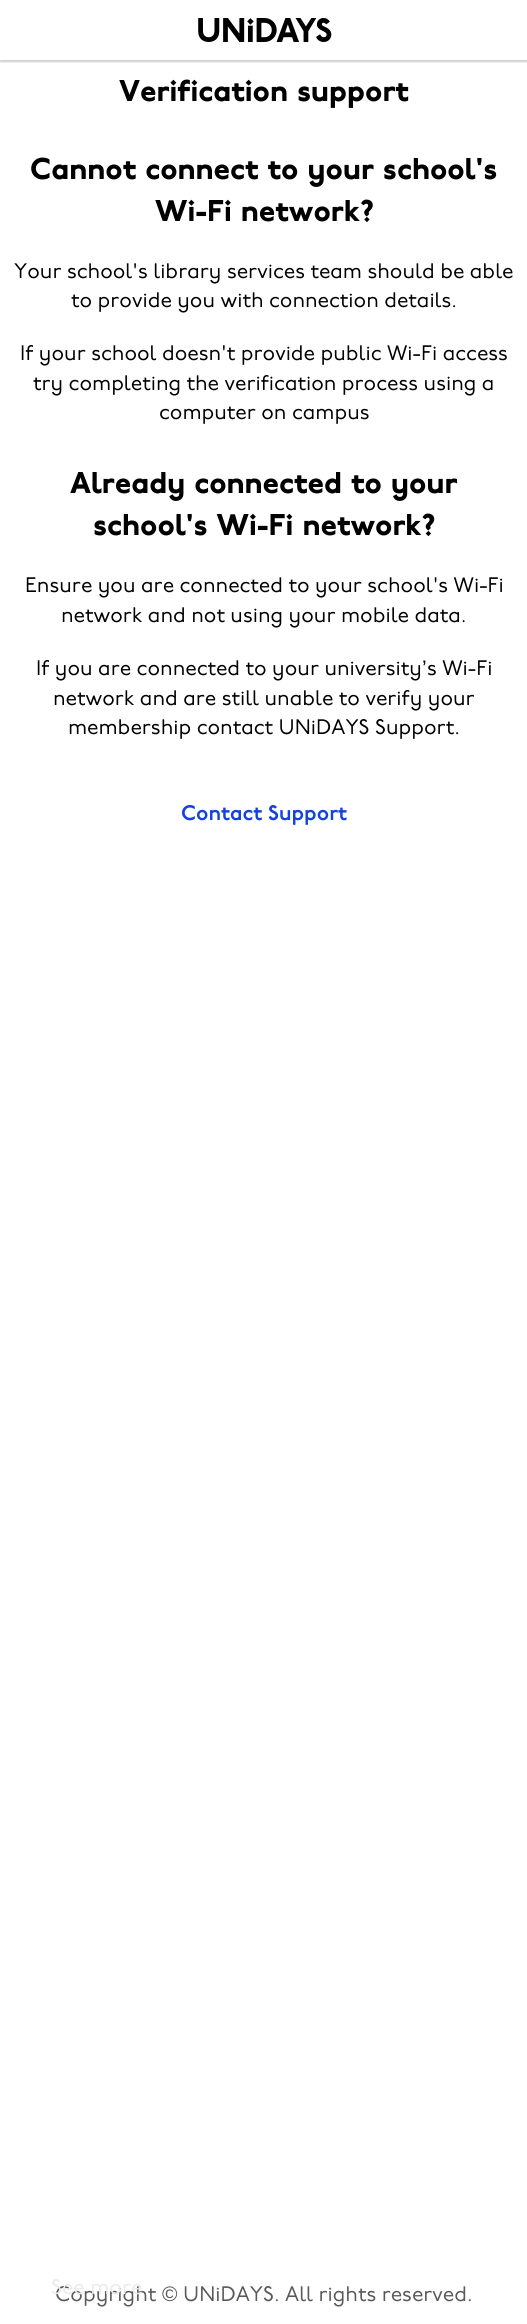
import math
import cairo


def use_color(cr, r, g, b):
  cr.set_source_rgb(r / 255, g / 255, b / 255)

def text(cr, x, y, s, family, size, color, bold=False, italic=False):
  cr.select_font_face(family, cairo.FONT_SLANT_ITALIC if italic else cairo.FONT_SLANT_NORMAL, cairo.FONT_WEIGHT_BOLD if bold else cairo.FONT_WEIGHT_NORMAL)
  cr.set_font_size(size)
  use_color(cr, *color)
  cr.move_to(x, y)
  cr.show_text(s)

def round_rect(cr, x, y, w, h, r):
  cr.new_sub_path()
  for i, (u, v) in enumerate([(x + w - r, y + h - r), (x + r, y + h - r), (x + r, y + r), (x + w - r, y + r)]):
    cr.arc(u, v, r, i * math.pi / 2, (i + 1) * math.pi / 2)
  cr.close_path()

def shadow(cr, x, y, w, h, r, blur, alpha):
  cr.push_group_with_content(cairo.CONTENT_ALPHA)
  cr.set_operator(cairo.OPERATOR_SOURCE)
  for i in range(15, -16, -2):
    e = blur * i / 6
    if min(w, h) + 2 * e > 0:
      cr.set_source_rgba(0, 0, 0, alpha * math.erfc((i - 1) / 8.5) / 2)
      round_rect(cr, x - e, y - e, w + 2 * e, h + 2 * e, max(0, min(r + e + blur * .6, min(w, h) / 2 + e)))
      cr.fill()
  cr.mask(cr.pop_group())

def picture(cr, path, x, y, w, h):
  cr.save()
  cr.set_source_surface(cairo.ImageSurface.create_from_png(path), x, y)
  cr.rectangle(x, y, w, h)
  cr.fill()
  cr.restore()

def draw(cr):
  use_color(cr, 255, 255, 255)
  cr.paint()
  cr.save()
  cr.rectangle(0, 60, 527, 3)
  cr.clip()
  use_color(cr, 0, 0, 0)
  shadow(cr, 0, 2, 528, 60, 0, 1, 0.2)
  cr.restore()
  picture(cr, "img_01.png", 198, 18, 134, 24)
  text(cr, 119, 101, "Verification support", "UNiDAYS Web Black", 30, (0, 0, 0))
  text(cr, 30, 179, "Cannot connect to your school's", "UNiDAYS Web Black", 30, (0, 0, 0))
  text(cr, 155, 221, "Wi-Fi network?", "UNiDAYS Web Black", 30, (0, 0, 0))
  text(cr, 14, 278, "Your school's library services team should be able", "UNiDAYS Web", 21, (0, 0, 0))
  text(cr, 71, 307, "to provide you with connection details.", "UNiDAYS Web", 21, (0, 0, 0))
  text(cr, 20, 360, "If your school doesn't provide public Wi-Fi access", "UNiDAYS Web", 21, (0, 0, 0))
  text(cr, 33, 390, "try completing the verification process using a", "UNiDAYS Web", 21, (0, 0, 0))
  text(cr, 159, 419, "computer on campus", "UNiDAYS Web", 21, (0, 0, 0))
  text(cr, 70, 493, "Already connected to your", "UNiDAYS Web Black", 30, (0, 0, 0))
  text(cr, 93, 535, "school's Wi-Fi network?", "UNiDAYS Web Black", 30, (0, 0, 0))
  text(cr, 25, 592, "Ensure you are connected to your school's Wi-Fi", "UNiDAYS Web", 21, (0, 0, 0))
  text(cr, 61, 622, "network and not using your mobile data.", "UNiDAYS Web", 21, (0, 0, 0))
  text(cr, 36, 675, "If you are connected to your university", "UNiDAYS Web", 21, (0, 0, 0))
  text(cr, 422, 675, "’", "Liberation Sans", 21, (0, 0, 0))
  text(cr, 427, 675, "s Wi-Fi", "UNiDAYS Web", 21, (0, 0, 0))
  text(cr, 53, 705, "network and are still unable to verify your", "UNiDAYS Web", 21, (0, 0, 0))
  text(cr, 68, 734, "membership contact UNiDAYS Support.", "UNiDAYS Web", 21, (0, 0, 0))
  text(cr, 181, 820, "Contact Support", "UNiDAYS Web SemiBold", 21, (19, 67, 222))
  text(cr, 55, 2301, "Copyright", "UNiDAYS Web", 21, (89, 89, 89))
  text(cr, 51, 2294, "See more", "UNiDAYS Web", 21, (234, 234, 234))
  text(cr, 162, 2301, "©", "Liberation Sans", 21, (89, 89, 89))
  text(cr, 183, 2301, "UNiDAYS. All rights reserved.", "UNiDAYS Web", 21, (89, 89, 89))


surface = cairo.ImageSurface(cairo.FORMAT_RGB24, 527, 2324)
cr = cairo.Context(surface)
options = cairo.FontOptions()
options.set_hint_metrics(cairo.HINT_METRICS_OFF)
options.set_hint_style(cairo.HINT_STYLE_NONE)
cr.set_font_options(options)
cr.set_miter_limit(4)
draw(cr)
surface.write_to_png("out.png")
